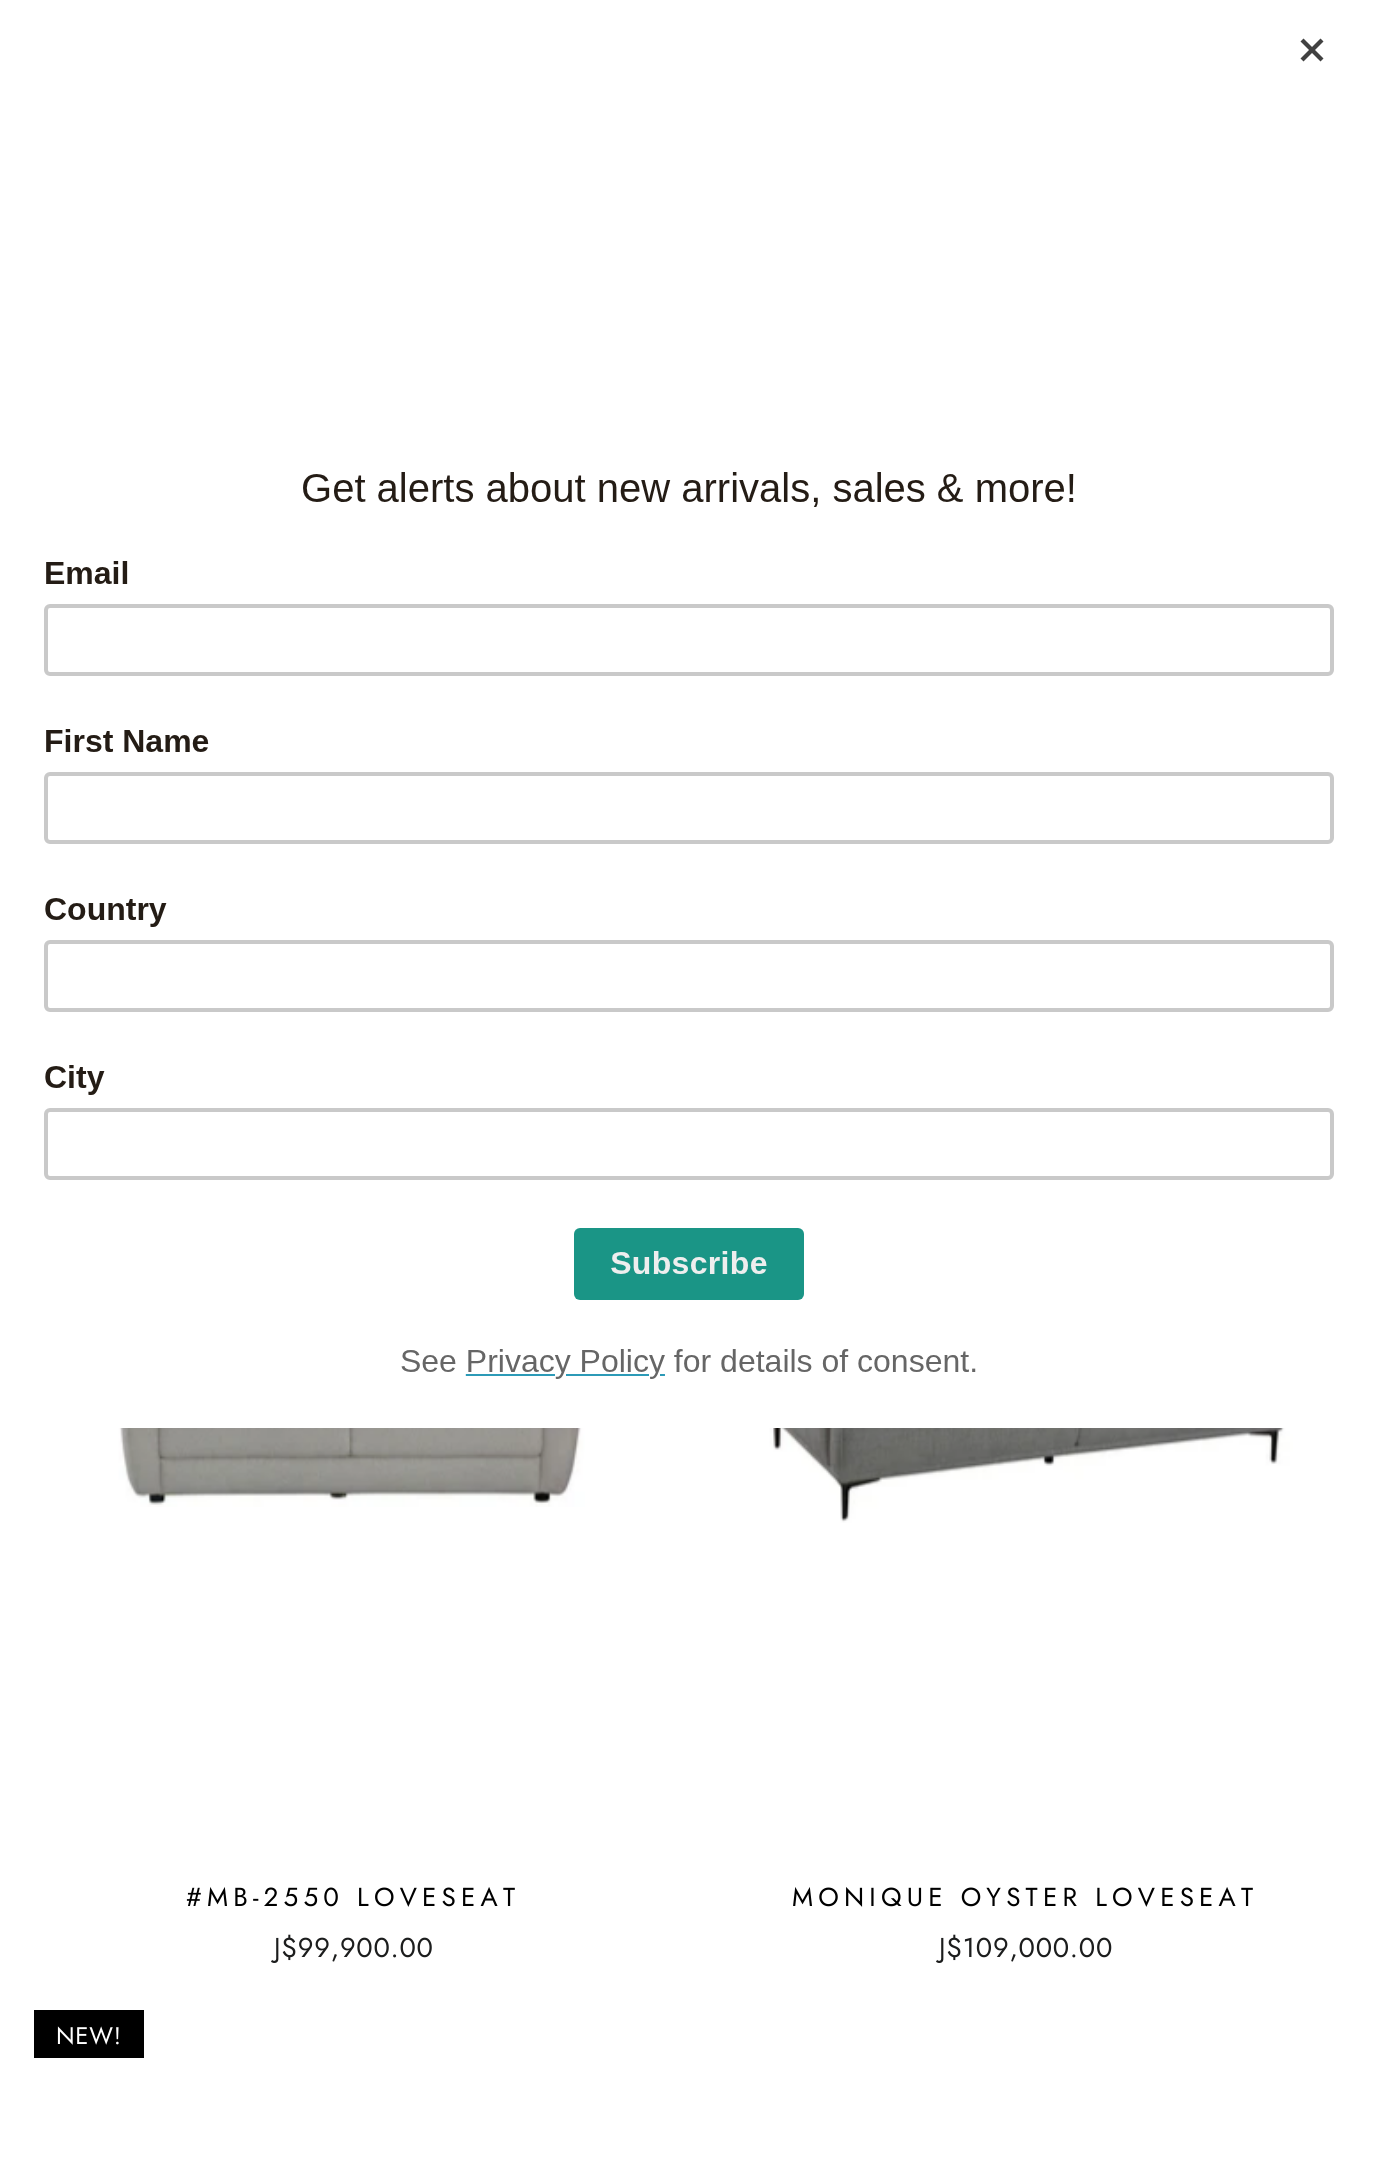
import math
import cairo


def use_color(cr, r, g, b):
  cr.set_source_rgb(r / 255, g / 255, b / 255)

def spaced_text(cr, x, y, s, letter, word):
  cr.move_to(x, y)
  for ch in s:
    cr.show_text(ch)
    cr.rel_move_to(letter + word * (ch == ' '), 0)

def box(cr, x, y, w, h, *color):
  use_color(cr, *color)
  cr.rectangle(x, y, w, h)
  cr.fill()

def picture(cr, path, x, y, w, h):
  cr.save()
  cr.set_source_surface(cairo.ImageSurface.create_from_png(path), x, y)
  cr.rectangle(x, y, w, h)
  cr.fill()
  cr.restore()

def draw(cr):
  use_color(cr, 255, 255, 255)
  cr.paint()
  use_color(cr, 65, 65, 65)
  cr.new_path()
  cr.move_to(1320.5, 38.5)
  cr.line_to(1323.5, 41.5)
  cr.line_to(1303.5, 61.5)
  cr.line_to(1300.5, 58.5)
  cr.close_path()
  cr.fill()
  cr.new_path()
  cr.move_to(1300.5, 41.5)
  cr.line_to(1303.5, 38.5)
  cr.line_to(1323.5, 58.5)
  cr.line_to(1320.5, 61.5)
  cr.close_path()
  cr.fill()
  picture(cr, "img_01.png", 0, 86, 1377, 1342)
  picture(cr, "img_02.png", 118, 1428, 467, 79)
  picture(cr, "img_03.png", 760, 1428, 533, 95)
  box(cr, 34, 2010, 110, 48, 0, 0, 0)
  cr.select_font_face("Jost")
  cr.set_font_size(26)
  spaced_text(cr, 186, 1906, "#MB-2550 LOVESEAT", 5.2, 0)
  cr.set_font_size(27.25)
  use_color(cr, 28, 29, 29)
  spaced_text(cr, 274, 1957, "J$99,900.00", 0.75, 0)
  cr.set_font_size(26)
  use_color(cr, 0, 0, 0)
  spaced_text(cr, 792, 1906, "MONIQUE OYSTER LOVESEAT", 5.2, 0)
  cr.set_font_size(27.25)
  use_color(cr, 28, 29, 29)
  spaced_text(cr, 939, 1957, "J$109,000.00", 0.75, 0)
  cr.set_font_size(24)
  use_color(cr, 255, 255, 255)
  spaced_text(cr, 56, 2044, "NEW!", 0.75, 0)


surface = cairo.ImageSurface(cairo.FORMAT_RGB24, 1377, 2172)
cr = cairo.Context(surface)
options = cairo.FontOptions()
options.set_hint_metrics(cairo.HINT_METRICS_OFF)
options.set_hint_style(cairo.HINT_STYLE_NONE)
cr.set_font_options(options)
cr.set_miter_limit(4)
draw(cr)
surface.write_to_png("out.png")
